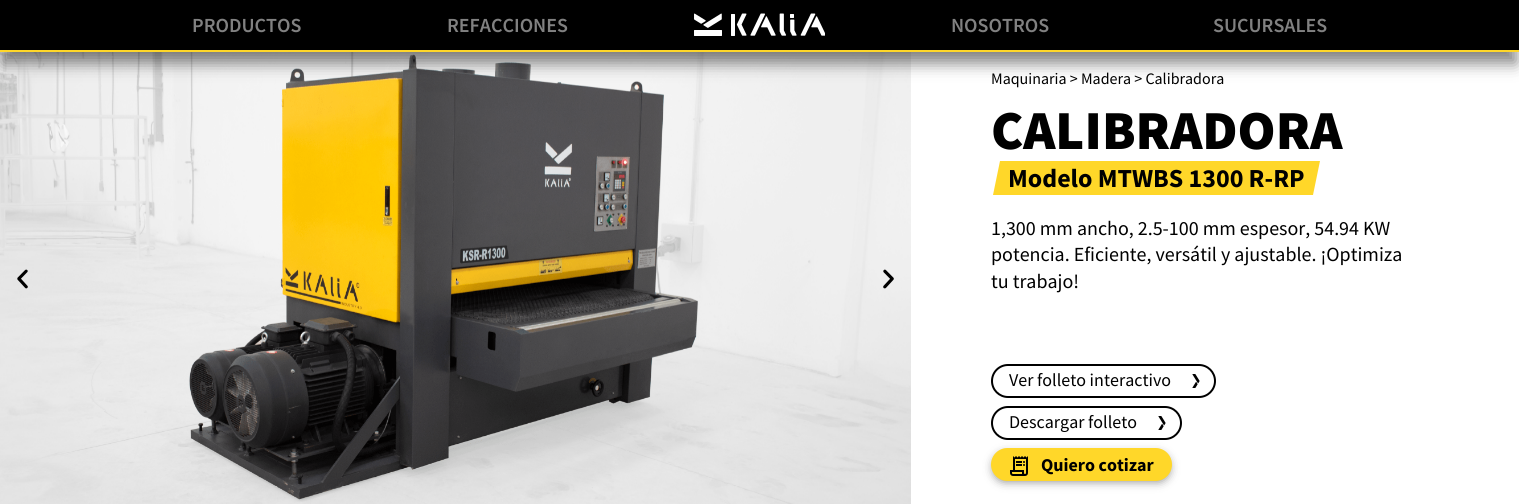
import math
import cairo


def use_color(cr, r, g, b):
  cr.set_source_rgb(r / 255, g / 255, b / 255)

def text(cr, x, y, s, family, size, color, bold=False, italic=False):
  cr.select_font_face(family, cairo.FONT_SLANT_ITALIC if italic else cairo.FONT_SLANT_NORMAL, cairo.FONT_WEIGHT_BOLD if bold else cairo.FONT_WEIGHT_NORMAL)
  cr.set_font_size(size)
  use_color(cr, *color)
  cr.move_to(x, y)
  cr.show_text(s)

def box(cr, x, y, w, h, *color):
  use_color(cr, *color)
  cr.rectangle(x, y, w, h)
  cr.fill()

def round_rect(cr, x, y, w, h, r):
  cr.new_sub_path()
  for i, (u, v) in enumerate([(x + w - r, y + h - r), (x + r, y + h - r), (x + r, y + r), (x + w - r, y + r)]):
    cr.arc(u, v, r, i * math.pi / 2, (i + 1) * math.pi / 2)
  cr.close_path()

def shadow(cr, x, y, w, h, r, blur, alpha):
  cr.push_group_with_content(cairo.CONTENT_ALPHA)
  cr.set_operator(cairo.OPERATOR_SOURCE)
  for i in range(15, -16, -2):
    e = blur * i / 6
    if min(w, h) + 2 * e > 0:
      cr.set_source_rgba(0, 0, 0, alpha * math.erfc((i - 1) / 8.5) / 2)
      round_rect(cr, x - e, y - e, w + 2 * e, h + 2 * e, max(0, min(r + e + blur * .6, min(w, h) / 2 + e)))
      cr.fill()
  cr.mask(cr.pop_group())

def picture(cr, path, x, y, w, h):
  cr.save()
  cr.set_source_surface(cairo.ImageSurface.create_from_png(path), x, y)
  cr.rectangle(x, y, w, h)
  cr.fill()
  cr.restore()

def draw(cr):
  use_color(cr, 255, 255, 255)
  cr.paint()
  picture(cr, "img_02.png", 0, 52, 911, 452)
  use_color(cr, 0, 0, 0)
  shadow(cr, 3, 17, 1513, 46, 0, 8, 0.5)
  box(cr, 0, 0, 1519, 50, 0, 0, 0)
  box(cr, 0, 50, 1519, 2, 255, 215, 41)
  picture(cr, "img_01.png", 694, 13, 131, 23)
  picture(cr, "img_03.png", 17, 269, 11, 20)
  picture(cr, "img_04.png", 883, 269, 11, 20)
  cr.new_path()
  cr.move_to(1000, 161)
  cr.line_to(1320, 161)
  cr.line_to(1313, 195)
  cr.line_to(993, 195)
  cr.close_path()
  cr.fill()
  round_rect(cr, 992, 365, 223, 32, 16)
  use_color(cr, 0, 0, 0)
  cr.stroke()
  picture(cr, "img_05.png", 1192, 374, 8, 14)
  round_rect(cr, 992, 407, 189, 32, 16)
  cr.stroke()
  picture(cr, "img_05.png", 1158, 416, 8, 14)
  use_color(cr, 0, 0, 0)
  shadow(cr, 994, 454, 175, 27, 13.5, 5, 0.5)
  use_color(cr, 255, 215, 41)
  round_rect(cr, 991, 448, 181, 33, 16.5)
  cr.fill()
  picture(cr, "img_06.png", 1010, 456, 18, 20)
  text(cr, 192, 32, "PRODUCTOS", "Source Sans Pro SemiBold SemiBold", 20, (129, 129, 129))
  text(cr, 447, 32, "REFACCIONES", "Source Sans Pro SemiBold SemiBold", 20, (129, 129, 129))
  text(cr, 951, 32, "NOSOTROS", "Source Sans Pro SemiBold SemiBold", 20, (129, 129, 129))
  text(cr, 1213, 32, "SUCURSALES", "Source Sans Pro SemiBold SemiBold", 20, (129, 129, 129))
  text(cr, 991, 84, "Maquinaria > Madera > Calibradora", "Source Sans Pro", 16, (0, 0, 0))
  text(cr, 991, 149, "CALIBRADORA", "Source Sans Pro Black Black", 55, (0, 0, 0))
  text(cr, 1008, 187, "Modelo MTWBS 1300 R-RP", "Source Sans Pro", 26, (0, 0, 0), bold=True)
  text(cr, 991, 235, "1,300 mm ancho, 2.5-100 mm espesor, 54.94 KW", "Source Sans Pro", 20, (0, 0, 0))
  text(cr, 991, 261, "potencia. Eficiente, versátil y ajustable. ¡Optimiza", "Source Sans Pro", 20, (0, 0, 0))
  text(cr, 991, 288, "tu trabajo!", "Source Sans Pro", 20, (0, 0, 0))
  text(cr, 1009, 386, "Ver folleto interactivo", "Source Sans Pro", 18, (0, 0, 0))
  text(cr, 1009, 428, "Descargar folleto", "Source Sans Pro", 18, (0, 0, 0))
  text(cr, 1041, 471, "Quiero cotizar", "Source Sans Pro", 18, (0, 0, 0), bold=True)


surface = cairo.ImageSurface(cairo.FORMAT_RGB24, 1519, 504)
cr = cairo.Context(surface)
options = cairo.FontOptions()
options.set_hint_metrics(cairo.HINT_METRICS_OFF)
options.set_hint_style(cairo.HINT_STYLE_NONE)
cr.set_font_options(options)
cr.set_miter_limit(4)
draw(cr)
surface.write_to_png("out.png")
